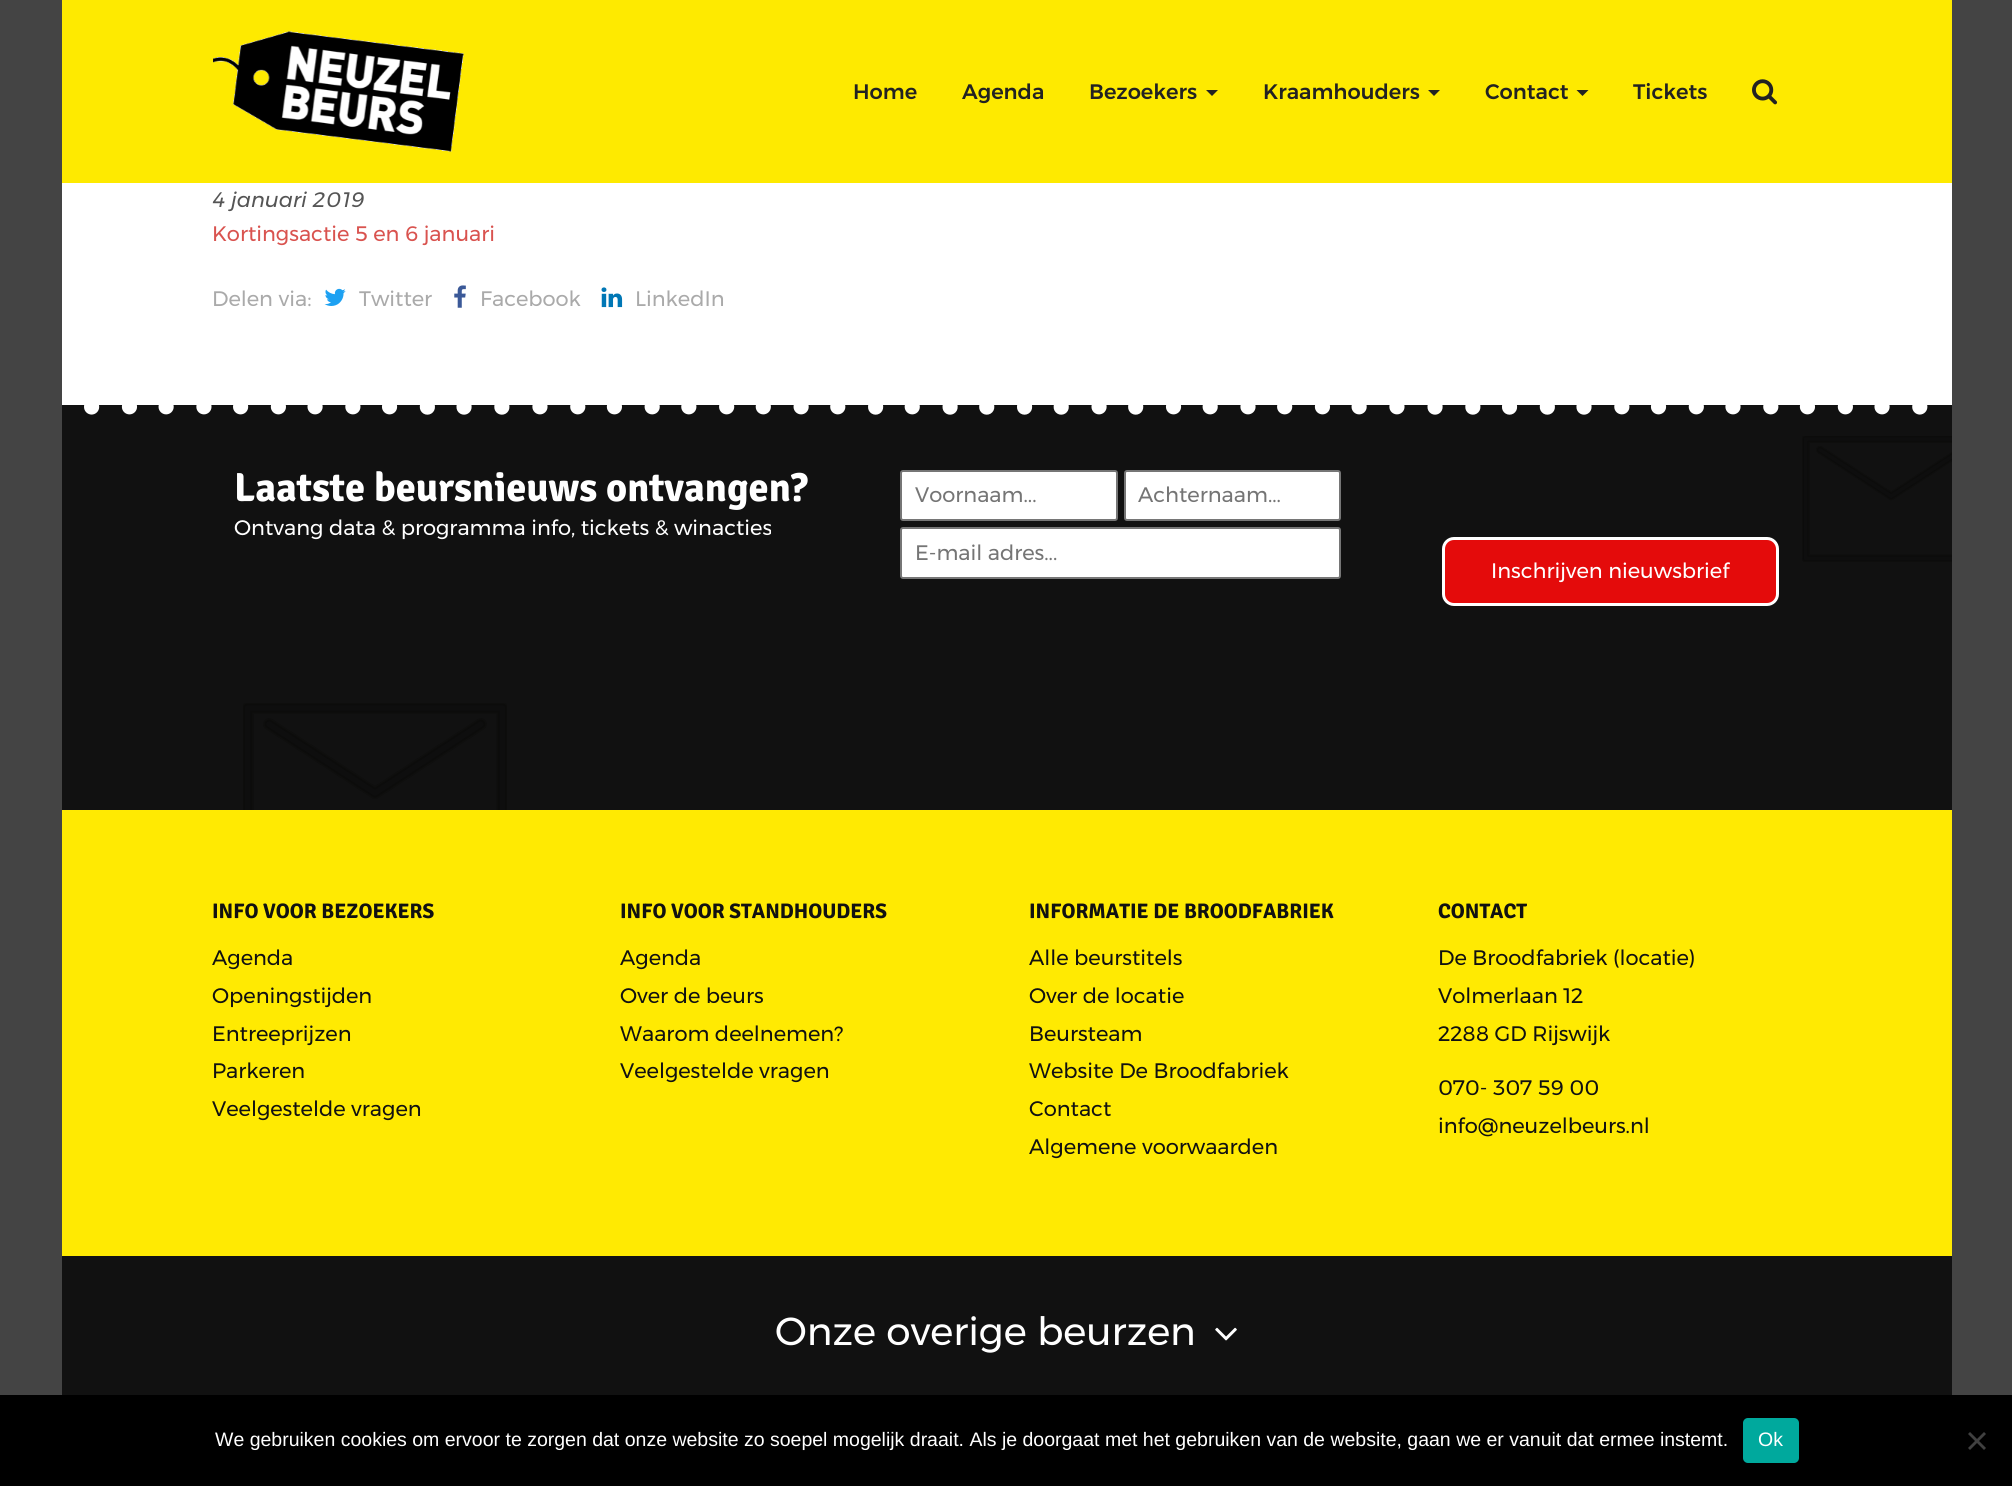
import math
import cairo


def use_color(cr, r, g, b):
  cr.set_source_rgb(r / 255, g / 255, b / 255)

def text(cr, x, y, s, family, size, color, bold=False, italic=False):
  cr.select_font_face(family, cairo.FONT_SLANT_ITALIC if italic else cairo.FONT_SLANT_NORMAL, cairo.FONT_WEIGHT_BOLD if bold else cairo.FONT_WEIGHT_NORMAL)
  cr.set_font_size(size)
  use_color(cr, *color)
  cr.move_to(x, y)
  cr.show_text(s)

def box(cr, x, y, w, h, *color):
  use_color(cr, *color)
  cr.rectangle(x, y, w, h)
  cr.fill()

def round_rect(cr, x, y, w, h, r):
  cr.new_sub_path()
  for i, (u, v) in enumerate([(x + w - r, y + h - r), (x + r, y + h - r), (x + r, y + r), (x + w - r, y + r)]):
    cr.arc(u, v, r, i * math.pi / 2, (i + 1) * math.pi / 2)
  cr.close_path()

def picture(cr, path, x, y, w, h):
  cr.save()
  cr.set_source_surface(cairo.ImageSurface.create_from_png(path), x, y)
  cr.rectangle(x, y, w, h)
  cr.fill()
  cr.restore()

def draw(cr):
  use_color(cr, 68, 68, 68)
  cr.paint()
  box(cr, 62, 183, 1890, 222, 255, 255, 255)
  box(cr, 62, 0, 1890, 183, 254, 234, 0)
  picture(cr, "img_01.png", 213, 31, 251, 121)
  use_color(cr, 34, 34, 34)
  cr.new_path()
  cr.move_to(1206, 90)
  cr.line_to(1218, 90)
  cr.line_to(1212, 96)
  cr.close_path()
  cr.fill()
  cr.new_path()
  cr.move_to(1428, 90)
  cr.line_to(1440, 90)
  cr.line_to(1434, 96)
  cr.close_path()
  cr.fill()
  cr.new_path()
  cr.move_to(1576.5, 90)
  cr.line_to(1588.5, 90)
  cr.line_to(1582.5, 96)
  cr.close_path()
  cr.fill()
  picture(cr, "img_02.png", 1752, 79, 26, 26)
  picture(cr, "img_03.png", 324, 288, 22, 18)
  picture(cr, "img_04.png", 454, 285, 12, 23)
  picture(cr, "img_05.png", 601, 287, 22, 21)
  box(cr, 62, 405, 1890, 405, 17, 17, 17)
  picture(cr, "img_06.png", 243, 703, 264, 107)
  picture(cr, "img_07.png", 1802, 436, 150, 126)
  picture(cr, "img_08.png", 84, 405, 1844, 10)
  use_color(cr, 255, 255, 255)
  round_rect(cr, 901, 471, 216, 49, 2)
  cr.fill_preserve()
  use_color(cr, 118, 118, 118)
  cr.stroke()
  use_color(cr, 255, 255, 255)
  round_rect(cr, 1125, 471, 215, 49, 2)
  cr.fill_preserve()
  use_color(cr, 118, 118, 118)
  cr.stroke()
  use_color(cr, 255, 255, 255)
  round_rect(cr, 901, 528, 439, 50, 2)
  cr.fill_preserve()
  use_color(cr, 118, 118, 118)
  cr.stroke()
  use_color(cr, 228, 11, 11)
  round_rect(cr, 1443.5, 538.5, 334, 66, 10.5)
  cr.fill_preserve()
  use_color(cr, 255, 255, 255)
  cr.set_line_width(3)
  cr.stroke()
  box(cr, 62, 810, 1890, 446, 255, 234, 2)
  box(cr, 62, 1256, 1890, 139, 17, 17, 17)
  picture(cr, "img_09.png", 1215, 1327, 22, 14)
  box(cr, 0, 1395, 2012, 91, 0, 0, 0)
  use_color(cr, 0, 169, 157)
  round_rect(cr, 1743, 1418, 56, 45, 5)
  cr.fill()
  use_color(cr, 64, 64, 64)
  cr.new_path()
  cr.move_to(1984, 1432)
  cr.line_to(1986, 1434)
  cr.line_to(1970, 1450)
  cr.line_to(1968, 1448)
  cr.close_path()
  cr.fill()
  cr.new_path()
  cr.move_to(1968, 1434)
  cr.line_to(1970, 1432)
  cr.line_to(1986, 1448)
  cr.line_to(1984, 1450)
  cr.close_path()
  cr.fill()
  text(cr, 853, 99, "Home", "Montserrat Medium", 21, (34, 34, 34))
  text(cr, 962, 99, "Agenda", "Montserrat Medium", 21, (34, 34, 34))
  text(cr, 1089, 99, "Bezoekers", "Montserrat Medium", 21, (34, 34, 34))
  text(cr, 1263, 99, "Kraamhouders", "Montserrat Medium", 21, (34, 34, 34))
  text(cr, 1485, 99, "Contact", "Montserrat Medium", 21, (34, 34, 34))
  text(cr, 1633, 99, "Tickets", "Montserrat Medium", 21, (34, 34, 34))
  text(cr, 212, 207, "4 januari 2019", "Montserrat", 21, (85, 85, 85), italic=True)
  text(cr, 212, 241, "Kortingsactie 5 en 6 januari", "Montserrat", 21, (217, 83, 79))
  text(cr, 212, 306, "Delen via:", "Montserrat", 21, (170, 170, 170))
  text(cr, 359, 306, "Twitter", "Montserrat", 21, (170, 170, 170))
  text(cr, 480, 306, "Facebook", "Montserrat", 21, (170, 170, 170))
  text(cr, 635, 306, "LinkedIn", "Montserrat", 21, (170, 170, 170))
  text(cr, 234, 501, "Laatste beursnieuws ontvangen?", "Signika", 40.5, (255, 255, 255), bold=True)
  text(cr, 234, 535, "Ontvang data & programma info, tickets & winacties", "Montserrat", 21, (255, 255, 255))
  text(cr, 915, 502, "Voornaam...", "Montserrat", 21, (117, 117, 117))
  text(cr, 1138, 502, "Achternaam...", "Montserrat", 21, (117, 117, 117))
  text(cr, 915, 560, "E-mail adres...", "Montserrat", 21, (117, 117, 117))
  text(cr, 1491, 578, "Inschrijven nieuwsbrief", "Montserrat", 21, (255, 255, 255))
  text(cr, 212, 918, "INFO VOOR BEZOEKERS", "Signika", 21, (17, 17, 17), bold=True)
  text(cr, 212, 965, "Agenda", "Montserrat", 21, (17, 17, 17))
  text(cr, 212, 1003, "Openingstijden", "Montserrat", 21, (17, 17, 17))
  text(cr, 212, 1041, "Entreeprijzen", "Montserrat", 21, (17, 17, 17))
  text(cr, 212, 1078, "Parkeren", "Montserrat", 21, (17, 17, 17))
  text(cr, 212, 1116, "Veelgestelde vragen", "Montserrat", 21, (17, 17, 17))
  text(cr, 620, 918, "INFO VOOR STANDHOUDERS", "Signika", 21, (17, 17, 17), bold=True)
  text(cr, 620, 965, "Agenda", "Montserrat", 21, (17, 17, 17))
  text(cr, 620, 1003, "Over de beurs", "Montserrat", 21, (17, 17, 17))
  text(cr, 620, 1041, "Waarom deelnemen?", "Montserrat", 21, (17, 17, 17))
  text(cr, 620, 1078, "Veelgestelde vragen", "Montserrat", 21, (17, 17, 17))
  text(cr, 1029, 918, "INFORMATIE DE BROODFABRIEK", "Signika", 21, (17, 17, 17), bold=True)
  text(cr, 1029, 965, "Alle beurstitels", "Montserrat", 21, (17, 17, 17))
  text(cr, 1029, 1003, "Over de locatie", "Montserrat", 21, (17, 17, 17))
  text(cr, 1029, 1041, "Beursteam", "Montserrat", 21, (17, 17, 17))
  text(cr, 1029, 1078, "Website De Broodfabriek", "Montserrat", 21, (17, 17, 17))
  text(cr, 1029, 1116, "Contact", "Montserrat", 21, (17, 17, 17))
  text(cr, 1029, 1154, "Algemene voorwaarden", "Montserrat", 21, (17, 17, 17))
  text(cr, 1438, 918, "CONTACT", "Signika", 21, (17, 17, 17), bold=True)
  text(cr, 1438, 965, "De Broodfabriek (locatie)", "Montserrat", 21, (17, 17, 17))
  text(cr, 1438, 1003, "Volmerlaan 12", "Montserrat", 21, (17, 17, 17))
  text(cr, 1438, 1041, "2288 GD Rijswijk", "Montserrat", 21, (17, 17, 17))
  text(cr, 1438, 1095, "070- 307 59 00", "Montserrat", 21, (17, 17, 17))
  text(cr, 1438, 1133, "info@neuzelbeurs.nl", "Montserrat", 21, (17, 17, 17))
  text(cr, 775, 1345, "Onze overige beurzen", "Montserrat", 39, (255, 255, 255))
  text(cr, 215, 1446, "We gebruiken cookies om ervoor te zorgen dat onze website zo soepel mogelijk draait. Als je doorgaat met het gebruiken van de website, gaan we er vanuit dat ermee instemt.", "Liberation Sans", 19.5, (255, 255, 255))
  text(cr, 1758, 1446, "Ok", "Liberation Sans", 19.5, (255, 255, 255))


surface = cairo.ImageSurface(cairo.FORMAT_RGB24, 2012, 1486)
cr = cairo.Context(surface)
options = cairo.FontOptions()
options.set_hint_metrics(cairo.HINT_METRICS_OFF)
options.set_hint_style(cairo.HINT_STYLE_NONE)
cr.set_font_options(options)
cr.set_miter_limit(4)
draw(cr)
surface.write_to_png("out.png")
